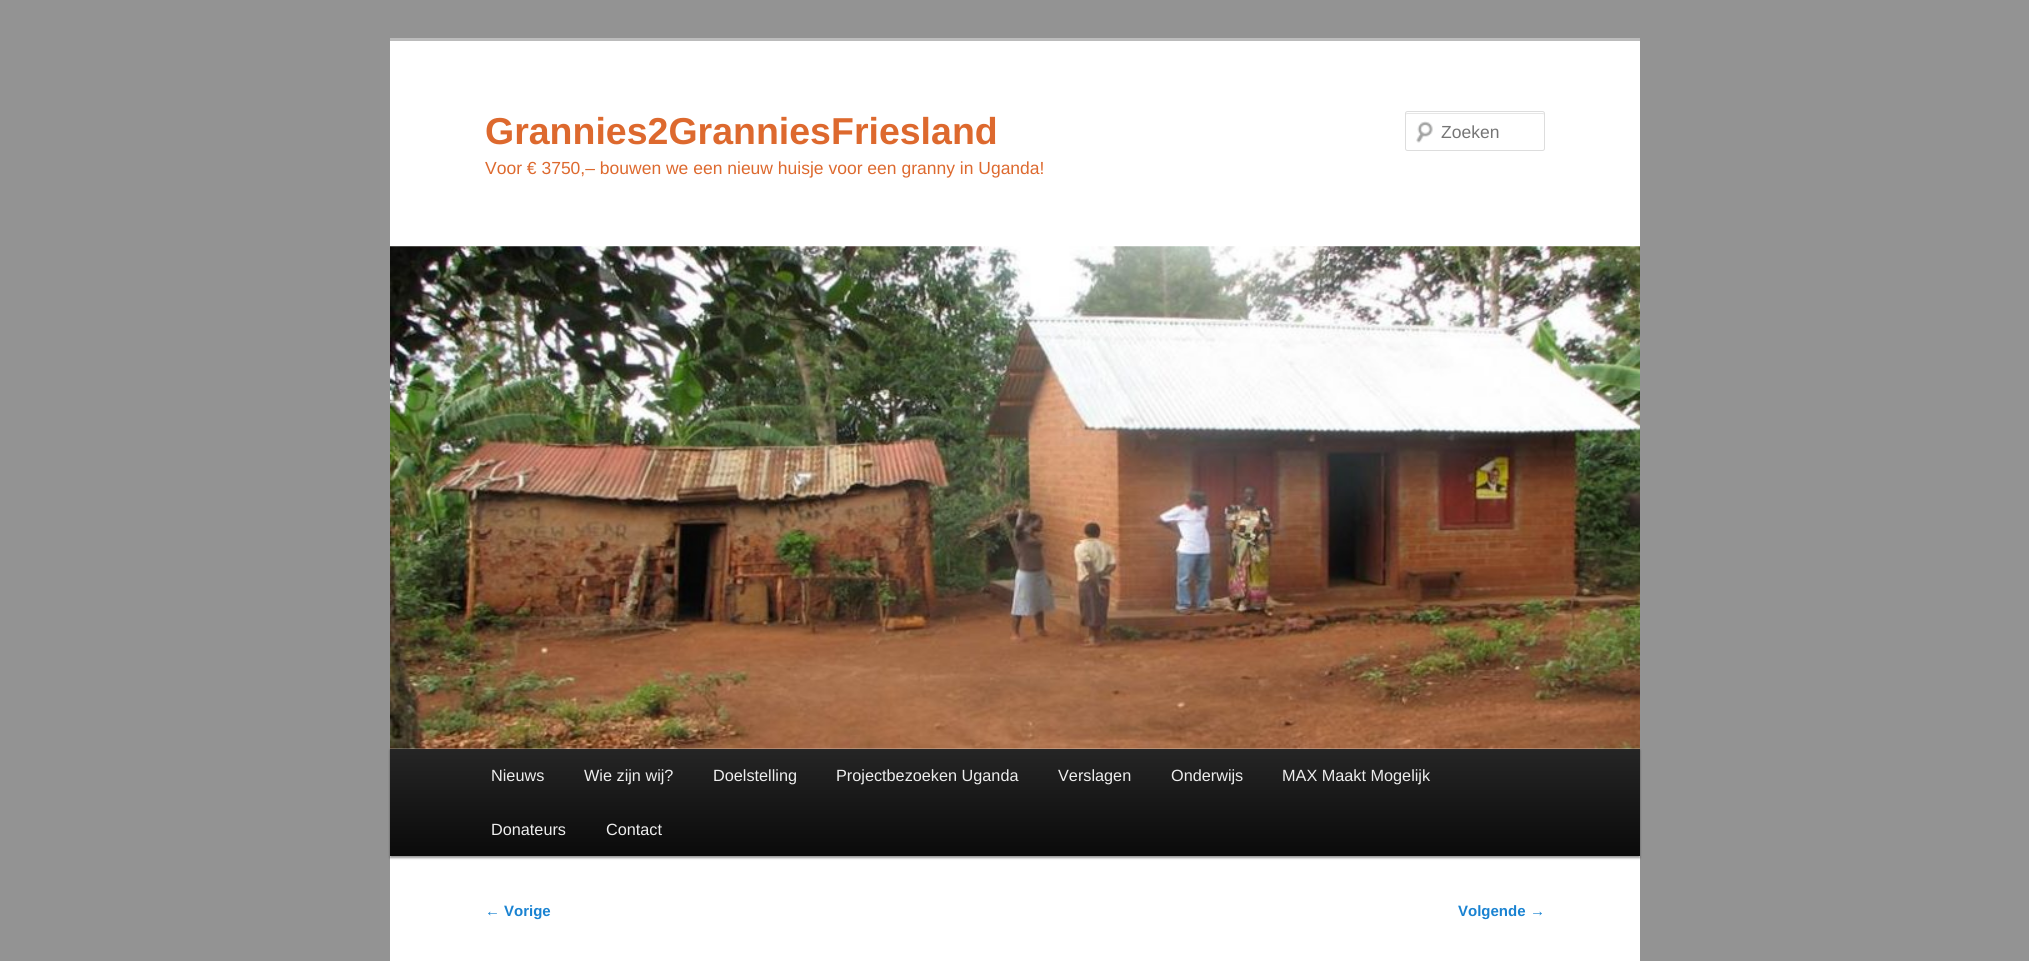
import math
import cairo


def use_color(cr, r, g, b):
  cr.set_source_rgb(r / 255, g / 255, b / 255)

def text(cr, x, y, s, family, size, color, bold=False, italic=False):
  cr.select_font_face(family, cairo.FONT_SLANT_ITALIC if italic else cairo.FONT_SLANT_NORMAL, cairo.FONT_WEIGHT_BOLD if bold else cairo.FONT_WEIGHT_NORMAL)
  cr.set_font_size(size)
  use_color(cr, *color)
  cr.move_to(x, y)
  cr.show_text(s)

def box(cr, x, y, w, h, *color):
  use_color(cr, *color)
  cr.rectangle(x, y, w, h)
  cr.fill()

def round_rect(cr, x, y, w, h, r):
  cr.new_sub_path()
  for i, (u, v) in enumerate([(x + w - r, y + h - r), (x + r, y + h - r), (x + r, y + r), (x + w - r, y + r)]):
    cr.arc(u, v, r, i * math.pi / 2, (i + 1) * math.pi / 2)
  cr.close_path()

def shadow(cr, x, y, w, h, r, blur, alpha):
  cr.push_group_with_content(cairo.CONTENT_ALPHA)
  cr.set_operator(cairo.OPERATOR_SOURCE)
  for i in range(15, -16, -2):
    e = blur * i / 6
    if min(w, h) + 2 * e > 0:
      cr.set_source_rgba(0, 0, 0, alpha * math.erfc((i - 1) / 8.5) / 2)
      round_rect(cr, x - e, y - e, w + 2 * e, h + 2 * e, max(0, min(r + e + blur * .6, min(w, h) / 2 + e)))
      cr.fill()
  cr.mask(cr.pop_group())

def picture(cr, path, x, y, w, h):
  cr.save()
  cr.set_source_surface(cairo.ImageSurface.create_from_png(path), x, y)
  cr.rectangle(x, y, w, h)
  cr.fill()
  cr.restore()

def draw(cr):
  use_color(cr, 147, 147, 147)
  cr.paint()
  box(cr, 390, 41, 1250, 920, 255, 255, 255)
  box(cr, 390, 38, 1250, 3, 187, 187, 187)
  picture(cr, "img_01.png", 1416, 121, 17, 22)
  use_color(cr, 230, 230, 230)
  cr.new_path()
  cr.move_to(1408, 114)
  cr.line_to(1542, 114)
  cr.curve_to(1543, 114, 1544, 114, 1544, 115)
  cr.curve_to(1544, 114, 1544, 113, 1543, 113)
  cr.line_to(1407, 113)
  cr.curve_to(1406, 113, 1406, 114, 1406, 115)
  cr.curve_to(1406, 114, 1407, 114, 1408, 114)
  cr.close_path()
  cr.fill()
  round_rect(cr, 1405.5, 111.5, 139, 39, 2)
  use_color(cr, 221, 221, 221)
  cr.set_line_width(1)
  cr.stroke()
  use_color(cr, 0, 0, 0)
  shadow(cr, 390, 750, 1250, 108, 0, 1, 0.4)
  picture(cr, "img_02.png", 390, 246, 1250, 503)
  gradient = cairo.LinearGradient(1015, 749, 1015, 856)
  gradient.add_color_stop_rgba(0, 0.145, 0.145, 0.145, 1)
  gradient.add_color_stop_rgba(1, 0.039, 0.039, 0.039, 1)
  cr.set_source(gradient)
  cr.rectangle(390, 749, 1250, 107)
  cr.fill()
  text(cr, 485, 144, "Grannies2GranniesFriesland", "Liberation Sans", 37.5, (221, 105, 46), bold=True)
  text(cr, 485, 174, "Voor € 3750,– bouwen we een nieuw huisje voor een granny in Uganda!", "Liberation Sans", 17.5, (221, 105, 46))
  text(cr, 1441, 138, "Zoeken", "Liberation Sans", 17.5, (117, 117, 117))
  text(cr, 491, 781, "Nieuws", "Liberation Sans", 16.25, (238, 238, 238))
  text(cr, 584, 781, "Wie zijn wij?", "Liberation Sans", 16.25, (238, 238, 238))
  text(cr, 713, 781, "Doelstelling", "Liberation Sans", 16.25, (238, 238, 238))
  text(cr, 836, 781, "Projectbezoeken Uganda", "Liberation Sans", 16.25, (238, 238, 238))
  text(cr, 1058, 781, "Verslagen", "Liberation Sans", 16.25, (238, 238, 238))
  text(cr, 1171, 781, "Onderwijs", "Liberation Sans", 16.25, (238, 238, 238))
  text(cr, 1282, 781, "MAX Maakt Mogelijk", "Liberation Sans", 16.25, (238, 238, 238))
  text(cr, 491, 835, "Donateurs", "Liberation Sans", 16.25, (238, 238, 238))
  text(cr, 606, 835, "Contact", "Liberation Sans", 16.25, (238, 238, 238))
  text(cr, 485, 916, "←", "Liberation Sans", 15, (25, 130, 209))
  text(cr, 504, 916, "Vorige", "Liberation Sans", 15, (25, 130, 209), bold=True)
  text(cr, 1458, 916, "Volgende", "Liberation Sans", 15, (25, 130, 209), bold=True)
  text(cr, 1530, 916, "→", "Liberation Sans", 15, (25, 130, 209))


surface = cairo.ImageSurface(cairo.FORMAT_RGB24, 2029, 961)
cr = cairo.Context(surface)
options = cairo.FontOptions()
options.set_hint_metrics(cairo.HINT_METRICS_OFF)
options.set_hint_style(cairo.HINT_STYLE_NONE)
cr.set_font_options(options)
cr.set_miter_limit(4)
draw(cr)
surface.write_to_png("out.png")
